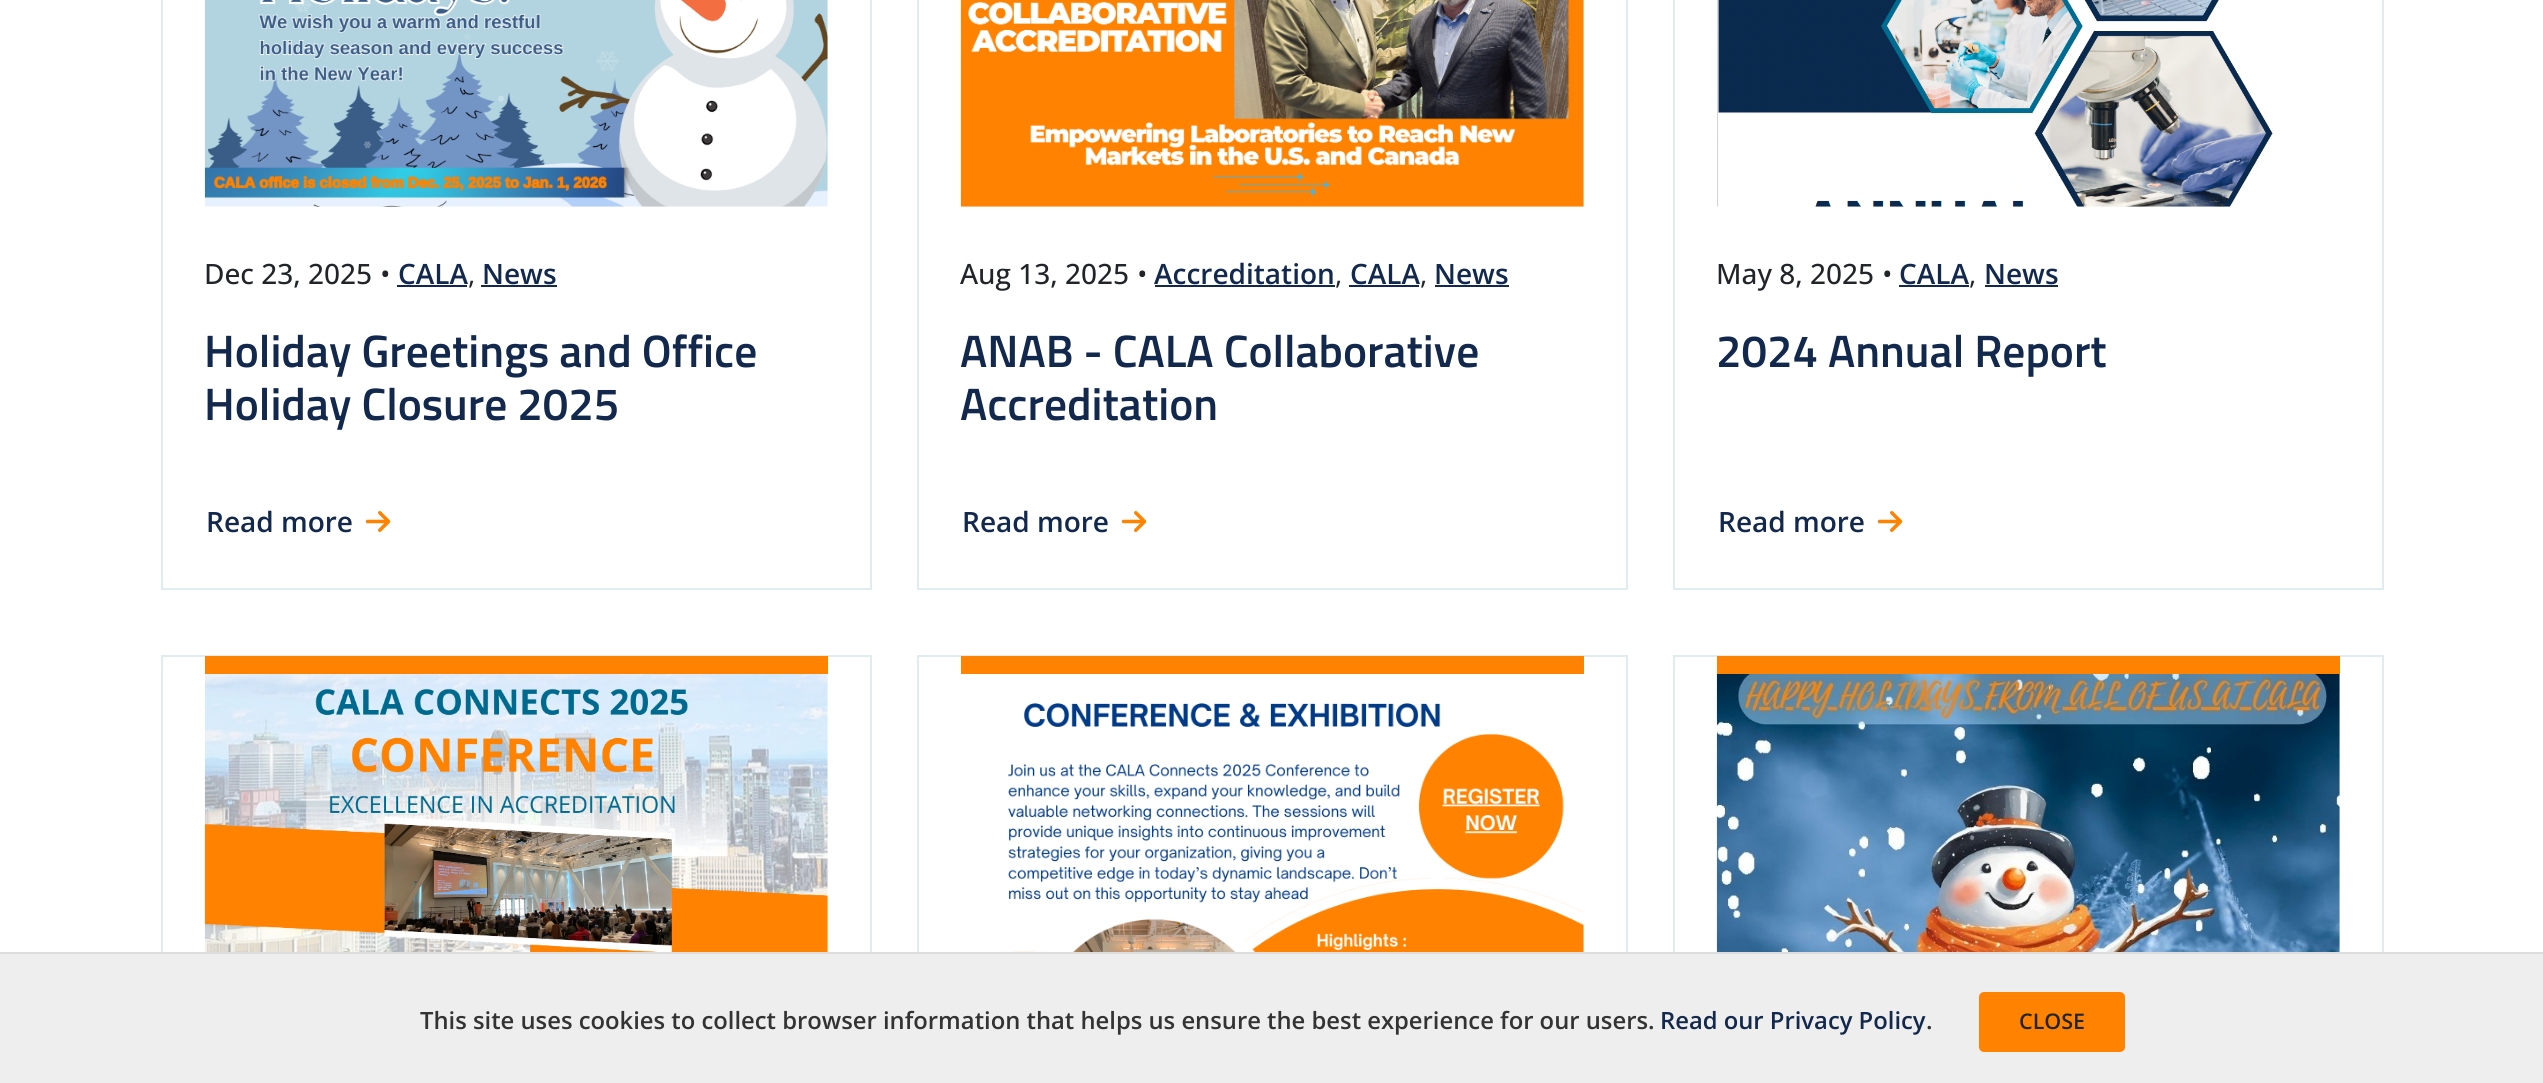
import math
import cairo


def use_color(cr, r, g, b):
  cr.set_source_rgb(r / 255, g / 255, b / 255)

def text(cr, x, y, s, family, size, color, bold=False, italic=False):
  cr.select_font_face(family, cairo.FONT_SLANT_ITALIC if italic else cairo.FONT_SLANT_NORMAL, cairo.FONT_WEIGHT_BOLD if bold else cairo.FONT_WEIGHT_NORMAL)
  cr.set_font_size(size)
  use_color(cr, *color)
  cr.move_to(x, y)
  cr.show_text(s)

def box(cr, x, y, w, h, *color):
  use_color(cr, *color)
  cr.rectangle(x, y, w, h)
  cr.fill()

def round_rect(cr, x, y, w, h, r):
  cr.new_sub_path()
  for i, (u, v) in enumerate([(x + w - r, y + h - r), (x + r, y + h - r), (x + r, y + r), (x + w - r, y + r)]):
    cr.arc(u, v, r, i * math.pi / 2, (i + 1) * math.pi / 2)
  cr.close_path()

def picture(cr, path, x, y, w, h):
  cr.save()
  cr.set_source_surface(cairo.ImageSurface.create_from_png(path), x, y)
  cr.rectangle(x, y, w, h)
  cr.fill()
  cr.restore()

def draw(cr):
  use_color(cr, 255, 255, 255)
  cr.paint()
  cr.rectangle(162, -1, 709, 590)
  use_color(cr, 223, 236, 240)
  cr.stroke()
  picture(cr, "img_01.png", 204, 0, 624, 207)
  box(cr, 397, 285, 70, 2, 18, 40, 76)
  box(cr, 481, 285, 76, 2, 18, 40, 76)
  picture(cr, "img_02.png", 365, 511, 26, 21)
  cr.rectangle(918, -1, 709, 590)
  use_color(cr, 223, 236, 240)
  cr.stroke()
  picture(cr, "img_03.png", 960, 0, 624, 207)
  box(cr, 1155, 285, 180, 2, 18, 40, 76)
  box(cr, 1349, 285, 70, 2, 18, 40, 76)
  box(cr, 1435, 285, 74, 2, 18, 40, 76)
  picture(cr, "img_02.png", 1121, 511, 26, 21)
  cr.rectangle(1674, -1, 709, 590)
  use_color(cr, 223, 236, 240)
  cr.stroke()
  picture(cr, "img_04.png", 1717, 0, 556, 207)
  box(cr, 1899, 285, 70, 2, 18, 40, 76)
  box(cr, 1985, 285, 73, 2, 18, 40, 76)
  picture(cr, "img_02.png", 1877, 511, 26, 21)
  cr.rectangle(162, 656, 709, 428)
  use_color(cr, 223, 236, 240)
  cr.stroke()
  box(cr, 205, 656, 623, 18, 255, 131, 0)
  picture(cr, "img_05.png", 204, 674, 624, 278)
  cr.rectangle(918, 656, 709, 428)
  use_color(cr, 223, 236, 240)
  cr.stroke()
  box(cr, 961, 656, 623, 18, 255, 131, 0)
  picture(cr, "img_06.png", 960, 703, 624, 249)
  cr.rectangle(1674, 656, 709, 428)
  use_color(cr, 223, 236, 240)
  cr.stroke()
  box(cr, 1717, 656, 623, 18, 255, 131, 0)
  picture(cr, "img_07.png", 1716, 674, 624, 278)
  box(cr, 0, 954, 2543, 129, 238, 238, 238)
  box(cr, 0, 952, 2543, 2, 221, 221, 221)
  use_color(cr, 255, 131, 0)
  round_rect(cr, 1979, 992, 146, 60, 5)
  cr.fill()
  text(cr, 204, 284, "Dec 23, 2025", "Open Sans Medium", 28, (33, 37, 41))
  text(cr, 380, 284, "•", "Open Sans", 28, (33, 37, 41))
  text(cr, 398, 284, "CALA", "Open Sans SemiBold", 28, (18, 40, 76))
  text(cr, 482, 284, "News", "Open Sans SemiBold", 28, (18, 40, 76))
  text(cr, 468, 284, ",", "Open Sans", 28, (33, 37, 41))
  text(cr, 204, 367, "Holiday Greetings and Office", "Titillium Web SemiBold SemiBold", 45.5, (18, 40, 76))
  text(cr, 204, 420, "Holiday Closure 2025", "Titillium Web SemiBold SemiBold", 45.5, (18, 40, 76))
  text(cr, 206, 532, "Read more", "Open Sans SemiBold", 28, (18, 40, 76))
  text(cr, 960, 284, "Aug 13, 2025", "Open Sans Medium", 28, (33, 37, 41))
  text(cr, 1137, 284, "•", "Open Sans", 28, (33, 37, 41))
  text(cr, 1154, 284, "Accreditation", "Open Sans SemiBold", 28, (18, 40, 76))
  text(cr, 1350, 284, "CALA", "Open Sans SemiBold", 28, (18, 40, 76))
  text(cr, 1434, 284, "News", "Open Sans SemiBold", 28, (18, 40, 76))
  text(cr, 1335, 284, ",", "Open Sans", 28, (33, 37, 41))
  text(cr, 1420, 284, ",", "Open Sans", 28, (33, 37, 41))
  text(cr, 960, 367, "ANAB - CALA Collaborative", "Titillium Web SemiBold SemiBold", 45.5, (18, 40, 76))
  text(cr, 960, 420, "Accreditation", "Titillium Web SemiBold SemiBold", 45.5, (18, 40, 76))
  text(cr, 962, 532, "Read more", "Open Sans SemiBold", 28, (18, 40, 76))
  text(cr, 1716, 284, "May 8, 2025", "Open Sans Medium", 28, (33, 37, 41))
  text(cr, 1882, 284, "•", "Open Sans", 28, (33, 37, 41))
  text(cr, 1899, 284, "CALA", "Open Sans SemiBold", 28, (18, 40, 76))
  text(cr, 1984, 284, "News", "Open Sans SemiBold", 28, (18, 40, 76))
  text(cr, 1969, 284, ",", "Open Sans", 28, (33, 37, 41))
  text(cr, 1716, 367, "2024 Annual Report", "Titillium Web SemiBold SemiBold", 45.5, (18, 40, 76))
  text(cr, 1718, 532, "Read more", "Open Sans SemiBold", 28, (18, 40, 76))
  text(cr, 420, 1029, "This site uses cookies to collect browser information that helps us ensure the best experience for our users.", "Open Sans SemiBold", 23.8, (51, 51, 51))
  text(cr, 1660, 1029, "Read our Privacy Policy", "Open Sans SemiBold", 23.8, (18, 40, 76))
  text(cr, 1926, 1029, ".", "Open Sans SemiBold", 23.8, (51, 51, 51))
  text(cr, 2019, 1029, "CLOSE", "Open Sans SemiBold", 21.5, (33, 37, 41))


surface = cairo.ImageSurface(cairo.FORMAT_RGB24, 2543, 1083)
cr = cairo.Context(surface)
options = cairo.FontOptions()
options.set_hint_metrics(cairo.HINT_METRICS_OFF)
options.set_hint_style(cairo.HINT_STYLE_NONE)
cr.set_font_options(options)
cr.set_miter_limit(4)
draw(cr)
surface.write_to_png("out.png")
